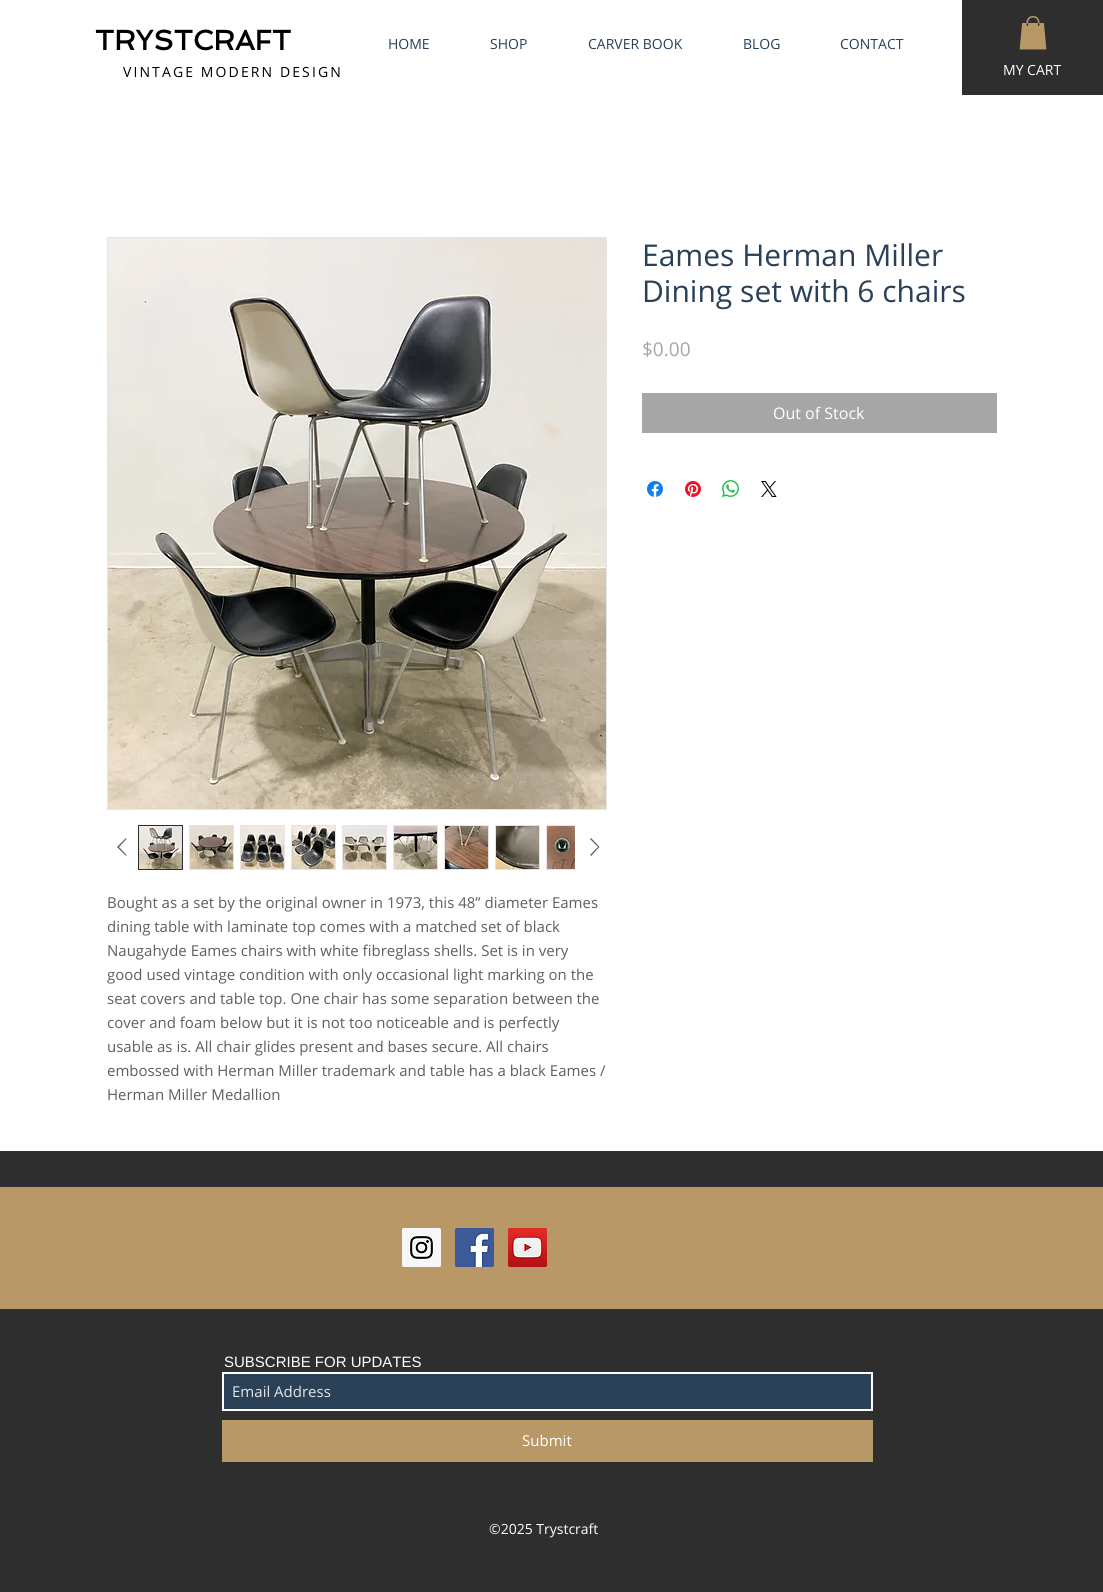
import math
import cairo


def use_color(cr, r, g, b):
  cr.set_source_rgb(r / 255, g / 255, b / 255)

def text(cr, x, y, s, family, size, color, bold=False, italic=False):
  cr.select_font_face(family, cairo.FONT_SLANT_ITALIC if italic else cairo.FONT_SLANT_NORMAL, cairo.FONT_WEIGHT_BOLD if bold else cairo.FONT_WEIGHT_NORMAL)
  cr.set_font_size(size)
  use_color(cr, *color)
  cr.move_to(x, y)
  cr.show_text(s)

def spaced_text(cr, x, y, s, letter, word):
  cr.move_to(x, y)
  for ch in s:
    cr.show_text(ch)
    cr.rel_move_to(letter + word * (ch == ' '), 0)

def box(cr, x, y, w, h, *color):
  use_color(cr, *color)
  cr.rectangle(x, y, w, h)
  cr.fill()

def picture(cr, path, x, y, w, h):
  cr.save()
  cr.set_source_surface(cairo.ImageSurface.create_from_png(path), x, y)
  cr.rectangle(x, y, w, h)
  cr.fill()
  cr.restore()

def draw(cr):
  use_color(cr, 255, 255, 255)
  cr.paint()
  box(cr, 962, 0, 141, 95, 47, 46, 46)
  picture(cr, "img_01.png", 1019, 16, 28, 34)
  box(cr, 642, 393, 355, 40, 166, 166, 166)
  picture(cr, "img_02.png", 647, 481, 16, 16)
  picture(cr, "img_03.png", 685, 481, 16, 16)
  picture(cr, "img_04.png", 722, 480, 17, 17)
  picture(cr, "img_05.png", 761, 481, 16, 16)
  cr.rectangle(107.5, 237.5, 499, 572)
  use_color(cr, 229, 229, 229)
  cr.set_line_width(1)
  cr.stroke()
  picture(cr, "img_06.png", 108, 238, 498, 571)
  use_color(cr, 96, 94, 94)
  cr.set_fill_rule(cairo.FILL_RULE_EVEN_ODD)
  cr.new_path()
  cr.move_to(126, 838)
  cr.line_to(126.5, 839)
  cr.line_to(119, 847)
  cr.line_to(126.5, 855)
  cr.line_to(126, 856)
  cr.line_to(117, 847)
  cr.close_path()
  cr.fill()
  cr.rectangle(138.5, 825.5, 44, 44)
  use_color(cr, 47, 46, 46)
  cr.stroke()
  picture(cr, "img_07.png", 139, 826, 43, 43)
  box(cr, 189, 825, 45, 45, 229, 229, 229)
  picture(cr, "img_08.png", 190, 826, 43, 43)
  box(cr, 240, 825, 45, 45, 229, 229, 229)
  picture(cr, "img_09.png", 241, 826, 43, 43)
  box(cr, 291, 825, 45, 45, 229, 229, 229)
  picture(cr, "img_10.png", 292, 826, 43, 43)
  box(cr, 342, 825, 45, 45, 229, 229, 229)
  picture(cr, "img_11.png", 343, 826, 43, 43)
  box(cr, 393, 825, 45, 45, 229, 229, 229)
  picture(cr, "img_12.png", 394, 826, 43, 43)
  box(cr, 444, 825, 45, 45, 229, 229, 229)
  picture(cr, "img_13.png", 445, 826, 43, 43)
  box(cr, 495, 825, 45, 45, 229, 229, 229)
  picture(cr, "img_14.png", 496, 826, 43, 43)
  box(cr, 546, 825, 29, 45, 229, 229, 229)
  picture(cr, "img_15.png", 547, 826, 28, 43)
  use_color(cr, 96, 94, 94)
  cr.new_path()
  cr.move_to(591, 838)
  cr.line_to(599.5, 847)
  cr.line_to(591, 856)
  cr.line_to(590, 855)
  cr.line_to(598, 847)
  cr.line_to(590, 839)
  cr.close_path()
  cr.fill()
  box(cr, 0, 1151, 1103, 441, 47, 46, 46)
  box(cr, 0, 1187, 1103, 122, 185, 152, 103)
  picture(cr, "img_16.png", 402, 1228, 39, 39)
  picture(cr, "img_17.png", 455, 1228, 39, 39)
  picture(cr, "img_18.png", 508, 1228, 39, 39)
  use_color(cr, 41, 64, 87)
  cr.rectangle(223, 1373, 649, 37)
  cr.fill_preserve()
  use_color(cr, 255, 255, 255)
  cr.set_line_width(2)
  cr.stroke()
  box(cr, 222, 1420, 651, 42, 185, 152, 103)
  cr.select_font_face("Spinnaker", cairo.FONT_SLANT_NORMAL, cairo.FONT_WEIGHT_BOLD)
  cr.set_font_size(28)
  use_color(cr, 0, 0, 0)
  spaced_text(cr, 95, 50, "TRYSTCRAFT", 0.25, 0)
  text(cr, 388, 49, "HOME", "Open Sans", 14, (41, 64, 87))
  text(cr, 490, 49, "SHOP", "Open Sans", 14, (41, 64, 87))
  text(cr, 588, 49, "CARVER BOOK", "Open Sans", 14, (41, 64, 87))
  text(cr, 743, 49, "BLOG", "Open Sans", 14, (41, 64, 87))
  text(cr, 840, 49, "CONTACT", "Open Sans", 14, (41, 64, 87))
  use_color(cr, 0, 0, 0)
  spaced_text(cr, 123, 77, "VINTAGE MODERN DESIGN", 2.1, 0)
  text(cr, 1003, 75, "MY CART", "Open Sans", 14, (255, 255, 255))
  text(cr, 642, 266, "Eames Herman Miller", "Open Sans", 30, (41, 64, 87))
  text(cr, 642, 302, "Dining set with 6 chairs", "Open Sans", 30, (41, 64, 87))
  text(cr, 642, 356, "$0.00", "Open Sans", 19, (166, 166, 166))
  text(cr, 773, 419, "Out of Stock", "Open Sans", 16, (255, 255, 255))
  text(cr, 107, 908, "Bought as a set by the original owner in 1973, this 48” diameter Eames", "Open Sans", 15, (96, 94, 94))
  text(cr, 107, 932, "dining table with laminate top comes with a matched set of black", "Open Sans", 15, (96, 94, 94))
  text(cr, 107, 956, "Naugahyde Eames chairs with white fibreglass shells. Set is in very", "Open Sans", 15, (96, 94, 94))
  text(cr, 107, 980, "good used vintage condition with only occasional light marking on the", "Open Sans", 15, (96, 94, 94))
  text(cr, 107, 1004, "seat covers and table top. One chair has some separation between the", "Open Sans", 15, (96, 94, 94))
  text(cr, 107, 1028, "cover and foam below but it is not too noticeable and is perfectly", "Open Sans", 15, (96, 94, 94))
  text(cr, 107, 1052, "usable as is. All chair glides present and bases secure. All chairs", "Open Sans", 15, (96, 94, 94))
  text(cr, 107, 1076, "embossed with Herman Miller trademark and table has a black Eames /", "Open Sans", 15, (96, 94, 94))
  text(cr, 107, 1100, "Herman Miller Medallion", "Open Sans", 15, (96, 94, 94))
  text(cr, 224, 1367, "SUBSCRIBE FOR UPDATES", "Liberation Sans", 15, (255, 255, 255))
  text(cr, 232, 1397, "Email Address", "Open Sans", 15, (229, 229, 229))
  text(cr, 522, 1446, "Submit", "Open Sans", 15, (255, 255, 255))
  text(cr, 489, 1534, "©2025 Trystcraft", "Open Sans", 14, (255, 255, 255))


surface = cairo.ImageSurface(cairo.FORMAT_RGB24, 1103, 1592)
cr = cairo.Context(surface)
options = cairo.FontOptions()
options.set_hint_metrics(cairo.HINT_METRICS_OFF)
options.set_hint_style(cairo.HINT_STYLE_NONE)
cr.set_font_options(options)
cr.set_miter_limit(4)
draw(cr)
surface.write_to_png("out.png")
